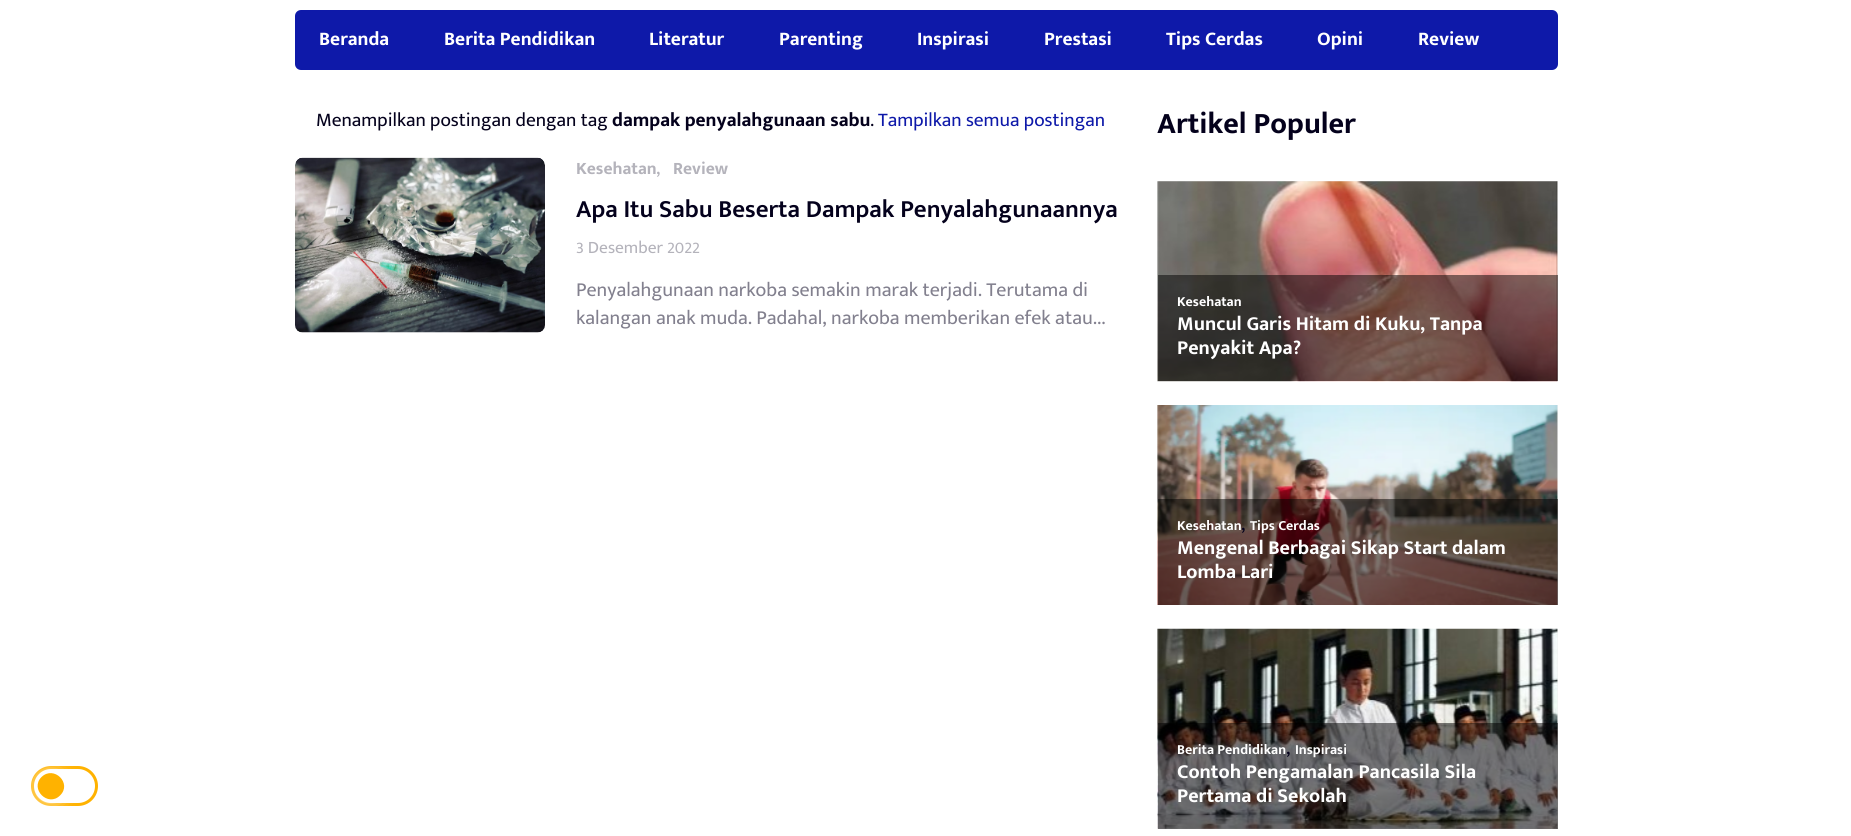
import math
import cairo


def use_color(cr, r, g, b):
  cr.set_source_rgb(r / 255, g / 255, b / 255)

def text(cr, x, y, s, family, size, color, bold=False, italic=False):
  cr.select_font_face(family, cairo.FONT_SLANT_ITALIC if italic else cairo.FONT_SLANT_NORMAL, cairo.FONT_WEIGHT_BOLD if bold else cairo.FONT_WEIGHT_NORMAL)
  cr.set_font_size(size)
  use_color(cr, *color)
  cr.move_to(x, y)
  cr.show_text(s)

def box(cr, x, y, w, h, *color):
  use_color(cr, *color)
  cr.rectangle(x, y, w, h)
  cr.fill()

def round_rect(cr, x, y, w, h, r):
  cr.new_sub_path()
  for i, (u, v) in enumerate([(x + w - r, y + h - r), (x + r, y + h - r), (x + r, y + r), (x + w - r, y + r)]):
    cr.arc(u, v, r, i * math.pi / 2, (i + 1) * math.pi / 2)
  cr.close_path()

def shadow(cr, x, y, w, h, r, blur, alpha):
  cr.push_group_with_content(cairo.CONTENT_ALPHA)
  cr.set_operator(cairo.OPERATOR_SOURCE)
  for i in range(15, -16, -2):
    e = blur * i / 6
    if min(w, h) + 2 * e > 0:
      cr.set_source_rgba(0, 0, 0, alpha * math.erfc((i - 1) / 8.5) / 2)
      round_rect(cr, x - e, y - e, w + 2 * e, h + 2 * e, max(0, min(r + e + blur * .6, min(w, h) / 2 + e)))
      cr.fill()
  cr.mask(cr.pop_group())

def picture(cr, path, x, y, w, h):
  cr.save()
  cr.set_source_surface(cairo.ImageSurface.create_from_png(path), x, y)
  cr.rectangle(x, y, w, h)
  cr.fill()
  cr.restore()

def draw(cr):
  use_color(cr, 255, 255, 255)
  cr.paint()
  use_color(cr, 14, 25, 169)
  round_rect(cr, 295, 10, 1263, 60, 6)
  cr.fill()
  round_rect(cr, 32.5, 767.5, 64, 37, 18.5)
  use_color(cr, 255, 178, 0)
  cr.set_line_width(3)
  cr.stroke()
  use_color(cr, 255, 255, 255)
  shadow(cr, 38, 774, 26, 26, 13, 8, 1)
  use_color(cr, 255, 178, 0)
  cr.new_path()
  cr.move_to(41.5, 777)
  cr.curve_to(54, 765, 72.5, 783.5, 60, 795.5)
  cr.curve_to(48, 807.5, 29.5, 789, 41.5, 777)
  cr.close_path()
  cr.fill()
  picture(cr, "img_01.png", 295, 157, 250, 176)
  box(cr, 1158, 181, 400, 200, 240, 240, 240)
  picture(cr, "img_02.png", 1157, 181, 401, 201)
  cr.set_source_rgba(0, 0, 0, 0.5)
  cr.rectangle(1158, 275, 400, 106)
  cr.fill()
  box(cr, 1158, 405, 400, 200, 240, 240, 240)
  picture(cr, "img_03.png", 1157, 405, 401, 200)
  cr.set_source_rgba(0, 0, 0, 0.5)
  cr.rectangle(1158, 499, 400, 106)
  cr.fill()
  box(cr, 1158, 629, 400, 200, 240, 240, 240)
  picture(cr, "img_04.png", 1157, 628, 401, 201)
  cr.set_source_rgba(0, 0, 0, 0.5)
  cr.rectangle(1158, 723, 400, 106)
  cr.fill()
  text(cr, 319, 45, "Beranda", "Mukta Mahee", 19.4, (255, 255, 255), bold=True)
  text(cr, 444, 45, "Berita Pendidikan", "Mukta Mahee", 19.4, (255, 255, 255), bold=True)
  text(cr, 649, 45, "Literatur", "Mukta Mahee", 19.4, (255, 255, 255), bold=True)
  text(cr, 779, 45, "Parenting", "Mukta Mahee", 19.4, (255, 255, 255), bold=True)
  text(cr, 917, 45, "Inspirasi", "Mukta Mahee", 19.4, (255, 255, 255), bold=True)
  text(cr, 1044, 45, "Prestasi", "Mukta Mahee", 19.4, (255, 255, 255), bold=True)
  text(cr, 1166, 45, "Tips Cerdas", "Mukta Mahee", 19.4, (255, 255, 255), bold=True)
  text(cr, 1317, 45, "Opini", "Mukta Mahee", 19.4, (255, 255, 255), bold=True)
  text(cr, 1418, 45, "Review", "Mukta Mahee", 19.4, (255, 255, 255), bold=True)
  text(cr, 316, 126, "Menampilkan postingan dengan tag", "Mukta Mahee", 19.4, (4, 1, 28))
  text(cr, 612, 126, "dampak penyalahgunaan sabu", "Mukta Mahee", 19.4, (4, 1, 28), bold=True)
  text(cr, 870, 126, ".", "Mukta Mahee", 19.4, (4, 1, 28))
  text(cr, 878, 126, "Tampilkan semua postingan", "Mukta Mahee", 19.4, (14, 25, 169))
  text(cr, 576, 174, "Kesehatan", "Mukta Mahee", 17.5, (180, 179, 187), bold=True)
  text(cr, 656, 174, ",", "Mukta Mahee", 20, (180, 179, 187))
  text(cr, 673, 174, "Review", "Mukta Mahee", 17.5, (180, 179, 187), bold=True)
  text(cr, 576, 217, "Apa Itu Sabu Beserta Dampak Penyalahgunaannya", "Mukta Mahee SemiBold", 25, (4, 1, 28))
  text(cr, 576, 253, "3 Desember 2022", "Mukta Mahee", 17.5, (180, 179, 187))
  text(cr, 576, 296, "Penyalahgunaan narkoba semakin marak terjadi. Terutama di", "Mukta Mahee", 20, (130, 128, 142))
  text(cr, 576, 324, "kalangan anak muda. Padahal, narkoba memberikan efek atau...", "Mukta Mahee", 20, (130, 128, 142))
  text(cr, 1157, 133, "Artikel Populer", "Mukta Mahee", 30, (4, 1, 28), bold=True)
  text(cr, 1177, 306, "Kesehatan", "Mukta Mahee", 14, (255, 255, 255), bold=True)
  text(cr, 1177, 330, "Muncul Garis Hitam di Kuku, Tanpa", "Mukta Mahee", 20, (255, 255, 255), bold=True)
  text(cr, 1177, 354, "Penyakit Apa?", "Mukta Mahee", 20, (255, 255, 255), bold=True)
  text(cr, 1177, 530, "Kesehatan", "Mukta Mahee", 14, (255, 255, 255), bold=True)
  text(cr, 1241, 530, ",", "Mukta Mahee", 20, (4, 1, 28))
  text(cr, 1250, 530, "Tips Cerdas", "Mukta Mahee", 14, (255, 255, 255), bold=True)
  text(cr, 1177, 554, "Mengenal Berbagai Sikap Start dalam", "Mukta Mahee", 20, (255, 255, 255), bold=True)
  text(cr, 1177, 578, "Lomba Lari", "Mukta Mahee", 20, (255, 255, 255), bold=True)
  text(cr, 1177, 754, "Berita Pendidikan", "Mukta Mahee", 14, (255, 255, 255), bold=True)
  text(cr, 1286, 754, ",", "Mukta Mahee", 20, (4, 1, 28))
  text(cr, 1295, 754, "Inspirasi", "Mukta Mahee", 14, (255, 255, 255), bold=True)
  text(cr, 1177, 778, "Contoh Pengamalan Pancasila Sila", "Mukta Mahee", 20, (255, 255, 255), bold=True)
  text(cr, 1177, 802, "Pertama di Sekolah", "Mukta Mahee", 20, (255, 255, 255), bold=True)


surface = cairo.ImageSurface(cairo.FORMAT_RGB24, 1851, 836)
cr = cairo.Context(surface)
options = cairo.FontOptions()
options.set_hint_metrics(cairo.HINT_METRICS_OFF)
options.set_hint_style(cairo.HINT_STYLE_NONE)
cr.set_font_options(options)
cr.set_miter_limit(4)
draw(cr)
surface.write_to_png("out.png")
